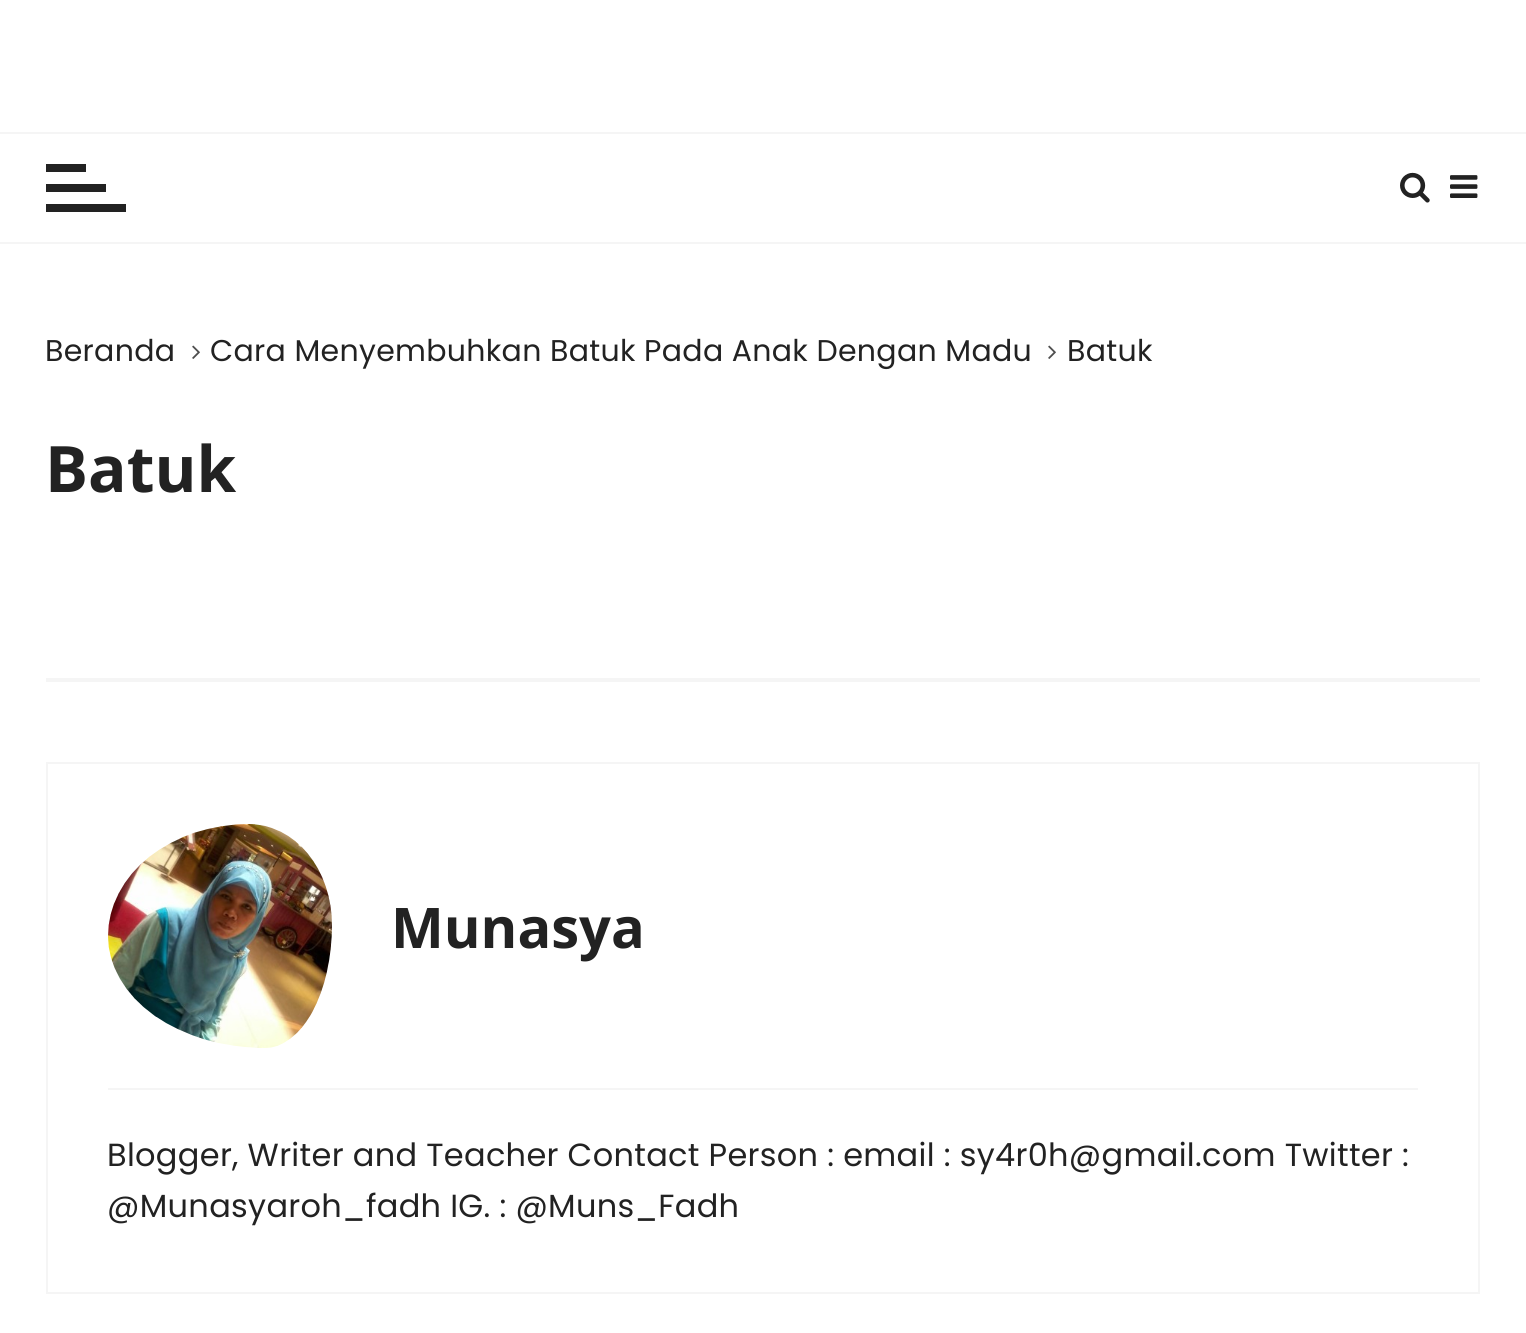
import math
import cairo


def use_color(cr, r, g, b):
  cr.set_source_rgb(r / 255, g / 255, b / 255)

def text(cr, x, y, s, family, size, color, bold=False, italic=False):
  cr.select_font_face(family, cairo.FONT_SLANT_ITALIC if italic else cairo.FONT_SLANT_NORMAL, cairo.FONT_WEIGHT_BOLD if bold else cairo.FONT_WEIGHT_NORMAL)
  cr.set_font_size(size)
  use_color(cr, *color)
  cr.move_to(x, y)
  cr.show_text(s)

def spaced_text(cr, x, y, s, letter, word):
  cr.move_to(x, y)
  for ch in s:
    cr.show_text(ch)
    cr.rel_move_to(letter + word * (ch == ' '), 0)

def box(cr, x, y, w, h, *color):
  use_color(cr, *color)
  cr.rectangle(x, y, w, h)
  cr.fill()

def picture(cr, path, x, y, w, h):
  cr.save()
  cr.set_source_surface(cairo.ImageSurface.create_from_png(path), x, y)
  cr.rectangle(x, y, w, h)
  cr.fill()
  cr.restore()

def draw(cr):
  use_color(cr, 255, 255, 255)
  cr.paint()
  box(cr, 0, 132, 1526, 2, 245, 245, 245)
  box(cr, 0, 242, 1526, 2, 245, 245, 245)
  box(cr, 46, 164, 40, 8, 34, 34, 34)
  box(cr, 46, 184, 60, 8, 34, 34, 34)
  box(cr, 46, 204, 80, 8, 34, 34, 34)
  picture(cr, "img_01.png", 1400, 172, 30, 31)
  picture(cr, "img_02.png", 1450, 175, 28, 23)
  picture(cr, "img_03.png", 192, 345, 8, 14)
  picture(cr, "img_03.png", 1048, 345, 8, 14)
  box(cr, 46, 678, 1434, 4, 245, 245, 245)
  cr.rectangle(47, 763, 1432, 530)
  cr.stroke()
  box(cr, 108, 1088, 1310, 2, 245, 245, 245)
  picture(cr, "img_04.png", 108, 824, 224, 224)
  cr.select_font_face("Poppins")
  cr.set_font_size(30)
  use_color(cr, 34, 34, 34)
  spaced_text(cr, 45, 361, "Beranda", 0.3, 0)
  spaced_text(cr, 210, 361, "Cara Menyembuhkan Batuk Pada Anak Dengan Madu", 0.3, 0)
  spaced_text(cr, 1067, 361, "Batuk", 0.3, 0)
  text(cr, 45, 492, "Batuk", "Open Sans", 64, (34, 34, 34), bold=True)
  text(cr, 391, 948, "Munasya", "Open Sans", 56, (34, 34, 34), bold=True)
  cr.select_font_face("Poppins")
  cr.set_font_size(32)
  spaced_text(cr, 107, 1166, "Blogger, Writer and Teacher Contact Person : email : sy4r0h@gmail.com Twitter :", 0.3, 0)
  spaced_text(cr, 107, 1217, "@Munasyaroh_fadh IG. : @Muns_Fadh", 0.3, 0)


surface = cairo.ImageSurface(cairo.FORMAT_RGB24, 1526, 1333)
cr = cairo.Context(surface)
options = cairo.FontOptions()
options.set_hint_metrics(cairo.HINT_METRICS_OFF)
options.set_hint_style(cairo.HINT_STYLE_NONE)
cr.set_font_options(options)
cr.set_miter_limit(4)
draw(cr)
surface.write_to_png("out.png")
